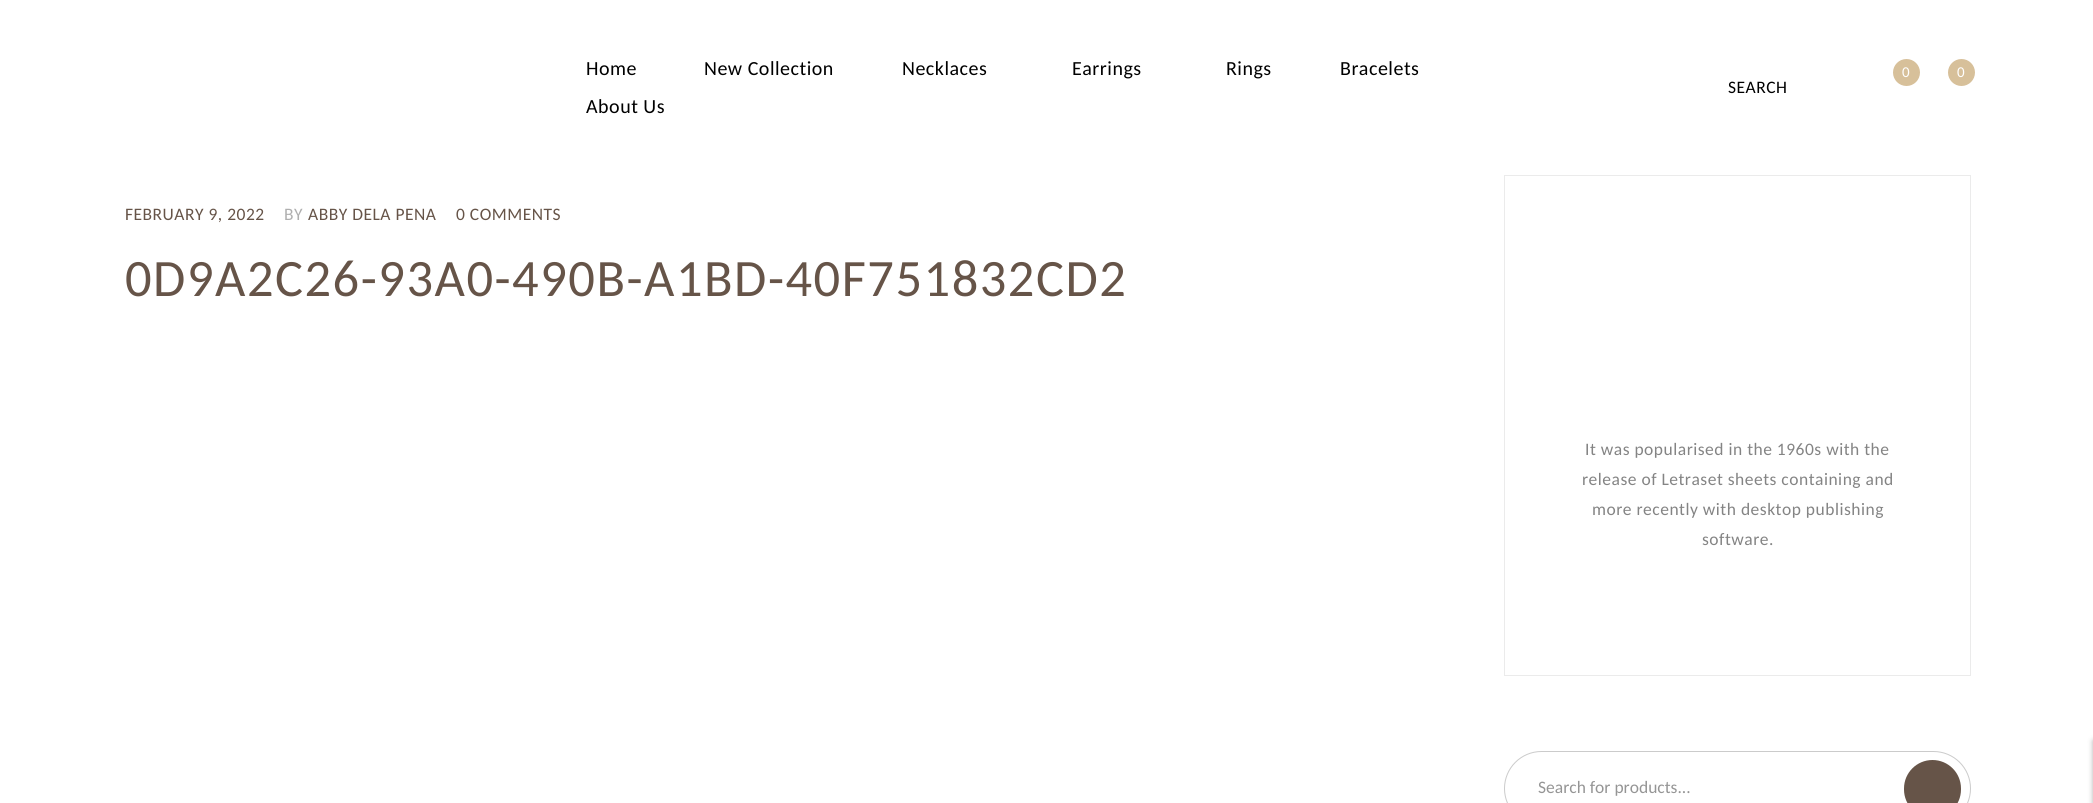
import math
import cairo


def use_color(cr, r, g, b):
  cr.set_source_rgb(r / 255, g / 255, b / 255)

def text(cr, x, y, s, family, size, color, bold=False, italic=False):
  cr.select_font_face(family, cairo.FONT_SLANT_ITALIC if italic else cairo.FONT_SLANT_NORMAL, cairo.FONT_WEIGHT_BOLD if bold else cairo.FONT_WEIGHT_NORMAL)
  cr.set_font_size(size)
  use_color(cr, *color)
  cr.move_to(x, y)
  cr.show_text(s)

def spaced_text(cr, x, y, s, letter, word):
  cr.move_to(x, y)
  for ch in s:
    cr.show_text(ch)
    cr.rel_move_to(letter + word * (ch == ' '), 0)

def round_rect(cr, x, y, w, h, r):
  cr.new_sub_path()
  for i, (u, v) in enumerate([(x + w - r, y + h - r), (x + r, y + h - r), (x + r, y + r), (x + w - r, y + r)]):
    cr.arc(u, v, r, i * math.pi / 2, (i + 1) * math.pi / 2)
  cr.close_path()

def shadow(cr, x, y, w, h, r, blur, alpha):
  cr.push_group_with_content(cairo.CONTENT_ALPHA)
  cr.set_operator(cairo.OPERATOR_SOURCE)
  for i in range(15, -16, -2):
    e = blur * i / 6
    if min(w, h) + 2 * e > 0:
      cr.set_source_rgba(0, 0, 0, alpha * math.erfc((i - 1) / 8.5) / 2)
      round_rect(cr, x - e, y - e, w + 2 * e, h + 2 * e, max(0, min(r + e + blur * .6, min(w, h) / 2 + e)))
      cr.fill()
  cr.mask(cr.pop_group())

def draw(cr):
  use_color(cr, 255, 255, 255)
  cr.paint()
  use_color(cr, 215, 192, 154)
  cr.arc(1906.5, 72.5, 13.5, 0, 2 * math.pi)
  cr.fill()
  cr.arc(1961.5, 72.5, 13.5, 0, 2 * math.pi)
  cr.fill()
  cr.rectangle(1504.5, 175.5, 466, 500)
  use_color(cr, 235, 235, 235)
  cr.set_line_width(1)
  cr.stroke()
  round_rect(cr, 1504.5, 751.5, 466, 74, 37)
  use_color(cr, 203, 203, 203)
  cr.stroke()
  use_color(cr, 102, 84, 72)
  round_rect(cr, 1904, 760, 57, 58, 28.5)
  cr.fill()
  use_color(cr, 36, 36, 36)
  shadow(cr, 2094, 741, 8, 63, 0, 3, 0.5)
  cr.select_font_face("Carlito")
  cr.set_font_size(20)
  use_color(cr, 0, 0, 0)
  spaced_text(cr, 586, 75, "Home", 0.5, 0)
  spaced_text(cr, 704, 75, "New Collection", 0.5, 0)
  spaced_text(cr, 902, 75, "Necklaces", 0.5, 0)
  spaced_text(cr, 1072, 75, "Earrings", 0.5, 0)
  spaced_text(cr, 1226, 75, "Rings", 0.5, 0)
  spaced_text(cr, 1340, 75, "Bracelets", 0.5, 0)
  spaced_text(cr, 586, 113, "About Us", 0.5, 0)
  cr.set_font_size(15)
  use_color(cr, 255, 255, 255)
  spaced_text(cr, 1902, 77, "0", 0.5, 0)
  spaced_text(cr, 1957, 77, "0", 0.5, 0)
  cr.set_font_size(17.5)
  use_color(cr, 0, 0, 0)
  spaced_text(cr, 1728, 93, "SEARCH", 0.5, 0)
  use_color(cr, 102, 84, 72)
  spaced_text(cr, 125, 220, "FEBRUARY 9, 2022", 0.5, 0)
  use_color(cr, 175, 175, 175)
  spaced_text(cr, 284, 220, "BY", 0.5, 0)
  use_color(cr, 102, 84, 72)
  spaced_text(cr, 308, 220, "ABBY DELA PENA", 0.5, 0)
  spaced_text(cr, 456, 220, "0 COMMENTS", 0.5, 0)
  cr.set_font_size(52.5)
  spaced_text(cr, 125, 296, "0D9A2C26-93A0-490B-A1BD-40F751832CD2", 1.5, 0)
  cr.set_font_size(17.5)
  use_color(cr, 132, 132, 132)
  spaced_text(cr, 1585, 455, "It was popularised in the 1960s with the", 0.5, 0)
  spaced_text(cr, 1582, 485, "release of Letraset sheets containing and", 0.5, 0)
  spaced_text(cr, 1592, 515, "more recently with desktop publishing", 0.5, 0)
  spaced_text(cr, 1702, 545, "software.", 0.5, 0)
  text(cr, 1538, 793, "Search for products...", "Carlito", 17.5, (149, 149, 149))


surface = cairo.ImageSurface(cairo.FORMAT_RGB24, 2093, 803)
cr = cairo.Context(surface)
options = cairo.FontOptions()
options.set_hint_metrics(cairo.HINT_METRICS_OFF)
options.set_hint_style(cairo.HINT_STYLE_NONE)
cr.set_font_options(options)
cr.set_miter_limit(4)
draw(cr)
surface.write_to_png("out.png")
